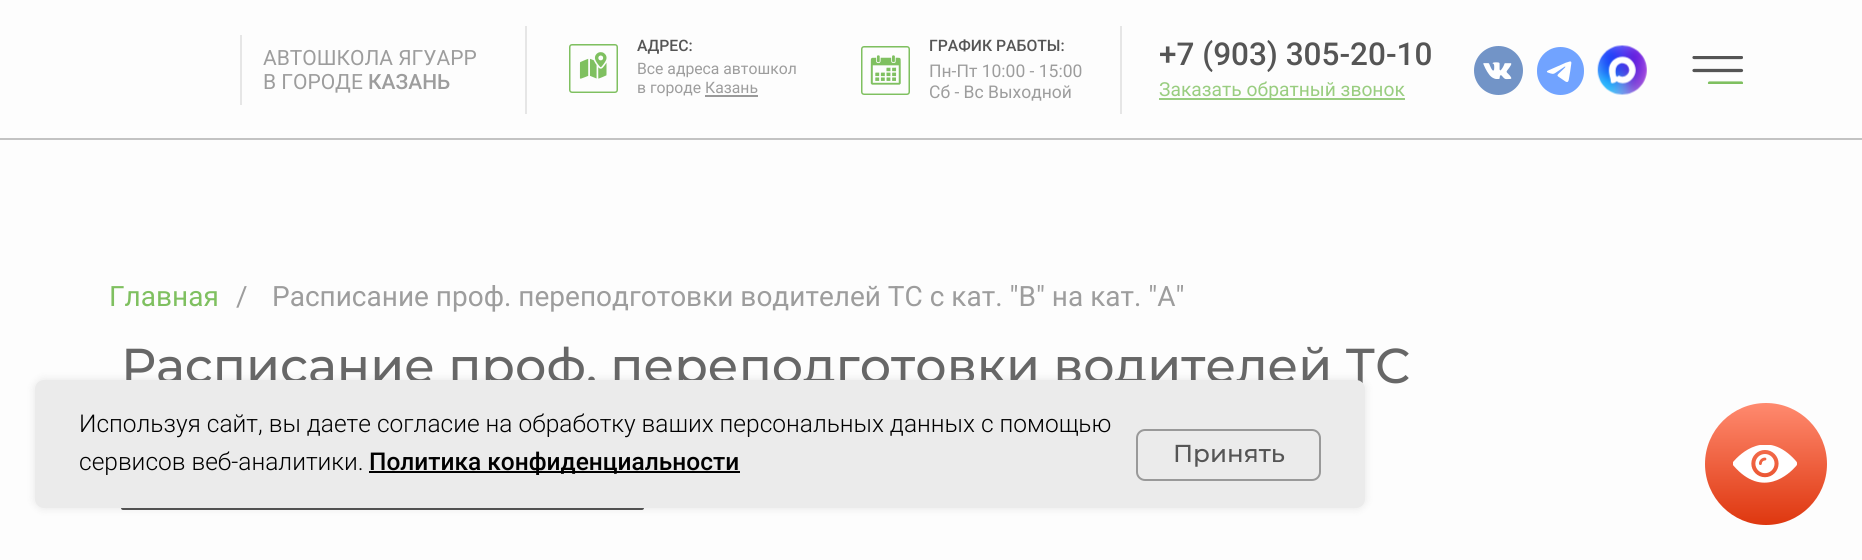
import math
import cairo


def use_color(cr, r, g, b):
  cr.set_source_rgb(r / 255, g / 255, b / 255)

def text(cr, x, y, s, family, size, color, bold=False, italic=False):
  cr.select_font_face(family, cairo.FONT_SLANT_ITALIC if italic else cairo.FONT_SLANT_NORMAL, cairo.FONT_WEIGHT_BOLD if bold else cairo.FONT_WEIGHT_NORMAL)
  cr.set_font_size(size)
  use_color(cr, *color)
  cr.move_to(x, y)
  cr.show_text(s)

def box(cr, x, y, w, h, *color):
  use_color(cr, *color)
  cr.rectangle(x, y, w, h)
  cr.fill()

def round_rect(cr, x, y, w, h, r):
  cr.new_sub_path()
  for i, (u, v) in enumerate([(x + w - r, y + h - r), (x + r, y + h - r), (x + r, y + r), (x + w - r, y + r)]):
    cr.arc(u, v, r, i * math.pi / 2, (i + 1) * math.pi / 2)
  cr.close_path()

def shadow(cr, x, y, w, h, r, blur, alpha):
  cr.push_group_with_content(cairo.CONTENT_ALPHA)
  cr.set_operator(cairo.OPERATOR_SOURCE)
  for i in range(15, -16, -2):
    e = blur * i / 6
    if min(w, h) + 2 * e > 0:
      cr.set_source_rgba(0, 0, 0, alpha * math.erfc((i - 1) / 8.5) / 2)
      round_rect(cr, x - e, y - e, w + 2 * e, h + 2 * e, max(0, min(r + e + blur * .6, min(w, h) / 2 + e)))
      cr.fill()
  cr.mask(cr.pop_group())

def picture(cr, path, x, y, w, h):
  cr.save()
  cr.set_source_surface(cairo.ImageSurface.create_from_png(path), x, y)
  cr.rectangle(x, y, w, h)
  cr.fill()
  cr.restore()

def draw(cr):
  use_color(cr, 253, 253, 253)
  cr.paint()
  box(cr, 240, 35, 2, 70, 230, 230, 230)
  box(cr, 525, 26, 2, 88, 230, 230, 230)
  picture(cr, "img_01.png", 569, 44, 49, 49)
  picture(cr, "img_02.png", 861, 46, 49, 49)
  box(cr, 1120, 26, 2, 88, 230, 230, 230)
  picture(cr, "img_03.png", 1474, 46, 49, 49)
  picture(cr, "img_04.png", 1537, 47, 47, 48)
  picture(cr, "img_05.png", 1597, 45, 50, 50)
  cr.save()
  cr.rectangle(1692, 56, 51, 28)
  cr.clip()
  cr.new_path()
  cr.move_to(1694, 57.5)
  cr.line_to(1741.5, 57.5)
  use_color(cr, 85, 85, 85)
  cr.set_line_width(3.2)
  cr.set_line_cap(cairo.LINE_CAP_ROUND)
  cr.stroke()
  cr.restore()
  cr.new_path()
  cr.move_to(1694, 70.5)
  cr.line_to(1741.5, 70.5)
  use_color(cr, 85, 85, 85)
  cr.set_line_width(3.2)
  cr.set_line_cap(cairo.LINE_CAP_ROUND)
  cr.stroke()
  cr.save()
  cr.rectangle(1692, 56, 51, 28)
  cr.clip()
  cr.new_path()
  cr.move_to(1709.5, 83)
  cr.line_to(1741.5, 83)
  use_color(cr, 127, 192, 96)
  cr.stroke()
  cr.restore()
  box(cr, 1159, 98, 246, 2, 153, 205, 128)
  box(cr, 0, 138, 1862, 2, 195, 195, 195)
  use_color(cr, 85, 85, 85)
  round_rect(cr, 121, 506, 523, 4, 2)
  cr.fill()
  use_color(cr, 0, 0, 0)
  shadow(cr, 35, 380, 1330, 128, 9, 4.5, 0.1)
  gradient = cairo.LinearGradient(1766, 525, 1766, 403)
  gradient.add_color_stop_rgba(0, 0.871, 0.216, 0.059, 1)
  gradient.add_color_stop_rgba(1, 1, 0.541, 0.435, 1)
  cr.set_source(gradient)
  cr.arc(1766, 464, 61, 0, 2 * math.pi)
  cr.fill()
  picture(cr, "img_06.png", 1733, 445, 64, 38)
  text(cr, 263, 65, "АВТОШКОЛА ЯГУАРР", "Roboto", 21, (157, 157, 157))
  text(cr, 263, 89, "В ГОРОДЕ", "Roboto", 21, (157, 157, 157))
  text(cr, 368, 89, "КАЗАНЬ", "Roboto Medium", 21, (157, 157, 157))
  text(cr, 637, 51, "АДРЕС:", "Roboto Medium", 15.75, (85, 85, 85))
  text(cr, 929, 51, "ГРАФИК РАБОТЫ:", "Roboto Medium", 15.75, (85, 85, 85))
  text(cr, 1159, 65, "+7 (903) 305-20-10", "Roboto Medium", 31.5, (85, 85, 85))
  text(cr, 637, 74, "Все адреса автошкол", "Roboto", 15.75, (157, 157, 157))
  text(cr, 637, 93, "в городе Казань", "Roboto", 15.75, (157, 157, 157))
  box(cr, 705, 95, 53, 2, 153, 153, 153)
  text(cr, 929, 77, "Пн-Пт 10:00 - 15:00", "Roboto", 17.5, (157, 157, 157))
  text(cr, 929, 98, "Сб - Вс Выходной", "Roboto", 17.5, (157, 157, 157))
  text(cr, 1159, 96, "Заказать обратный звонок", "Roboto", 19.25, (153, 205, 128))
  text(cr, 109, 306, "Главная", "Roboto", 28, (127, 192, 96))
  text(cr, 236, 306, "/", "Roboto", 28, (157, 157, 157))
  text(cr, 272, 306, "Расписание проф. переподготовки водителей ТС с кат. \"В\" на кат. \"А\"", "Roboto", 28, (157, 157, 157))
  text(cr, 121, 383, "Расписание проф. переподготовки водителей ТС", "Montserrat Medium", 49, (103, 103, 103))
  use_color(cr, 235, 235, 235)
  round_rect(cr, 35, 380, 1330, 128, 9)
  cr.fill()
  text(cr, 79, 432, "Используя сайт, вы даете согласие на обработку ваших персональных данных с помощью", "Roboto Light", 24.5, (0, 0, 0))
  text(cr, 79, 470, "сервисов веб-аналитики.", "Roboto Light", 24.5, (0, 0, 0))
  box(cr, 369, 471, 371, 2, 0, 0, 0)
  text(cr, 369, 470, "Политика конфиденциальности", "Roboto Medium", 24.5, (0, 0, 0))
  round_rect(cr, 1137, 430, 183, 50, 8)
  use_color(cr, 153, 153, 153)
  cr.set_line_width(2)
  cr.set_line_cap(cairo.LINE_CAP_BUTT)
  cr.stroke()
  text(cr, 1173, 462, "Принять", "Montserrat Medium", 24.5, (85, 85, 85))


surface = cairo.ImageSurface(cairo.FORMAT_RGB24, 1862, 560)
cr = cairo.Context(surface)
options = cairo.FontOptions()
options.set_hint_metrics(cairo.HINT_METRICS_OFF)
options.set_hint_style(cairo.HINT_STYLE_NONE)
cr.set_font_options(options)
cr.set_miter_limit(4)
draw(cr)
surface.write_to_png("out.png")
